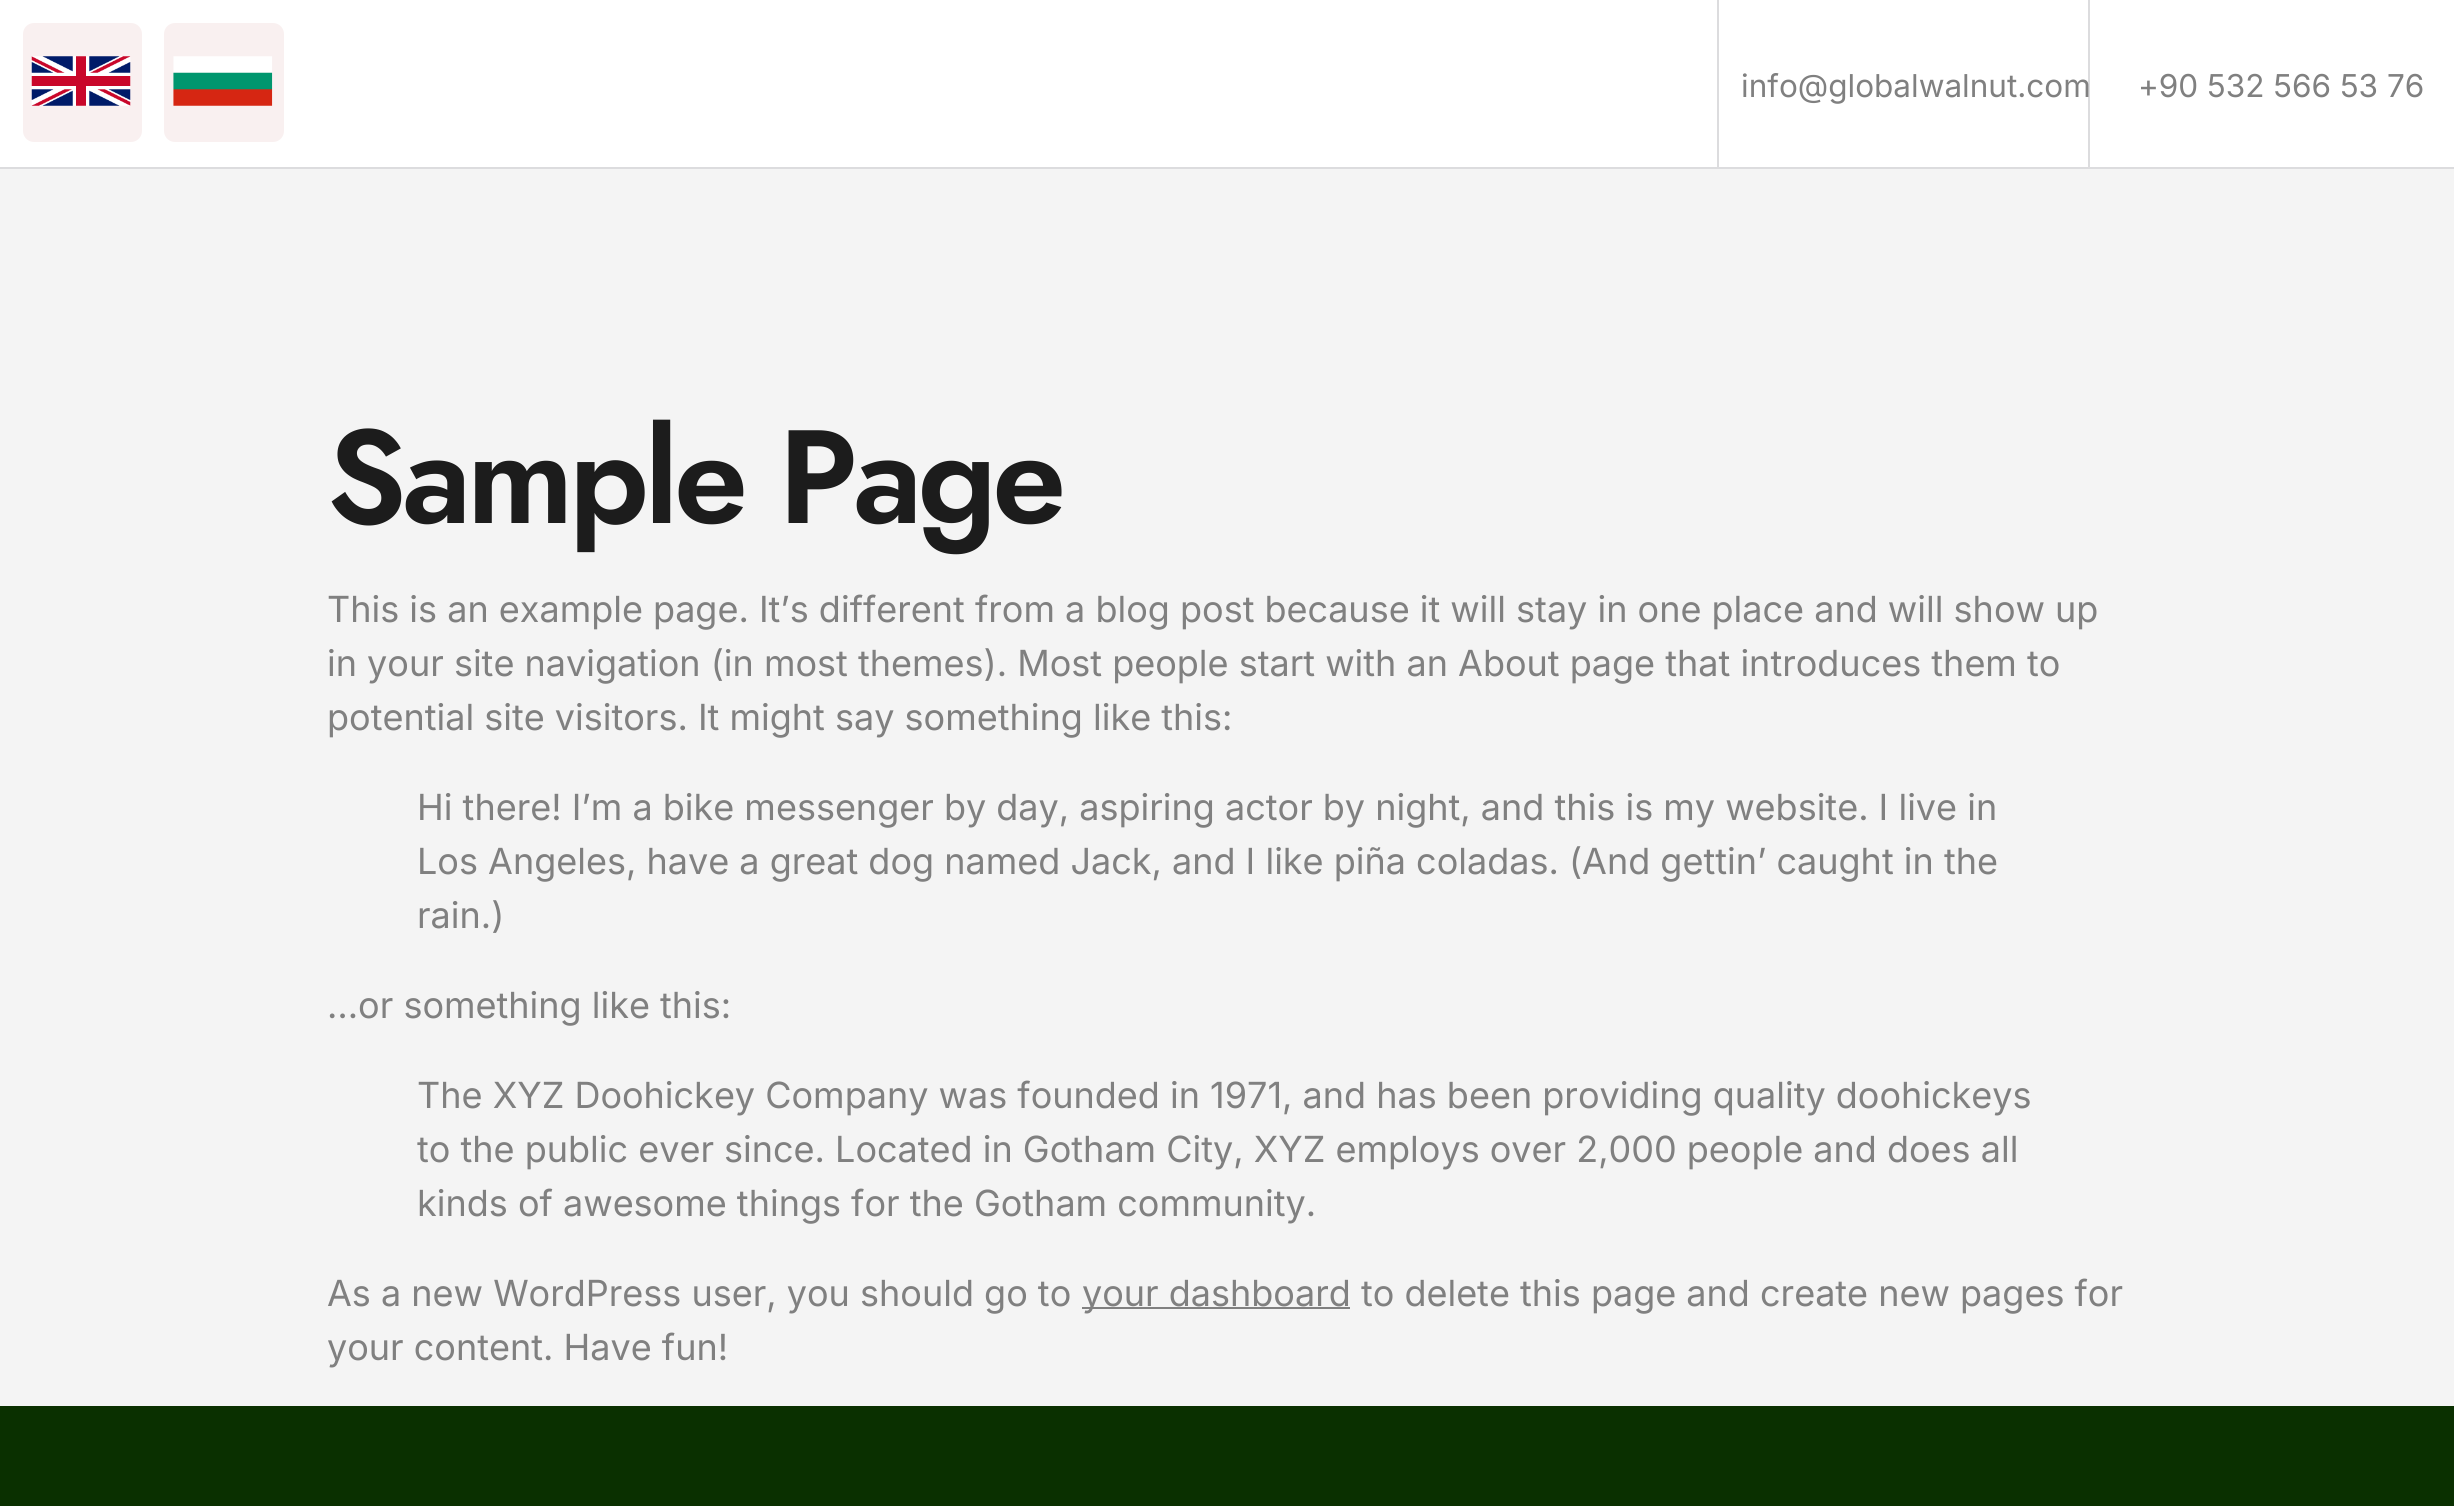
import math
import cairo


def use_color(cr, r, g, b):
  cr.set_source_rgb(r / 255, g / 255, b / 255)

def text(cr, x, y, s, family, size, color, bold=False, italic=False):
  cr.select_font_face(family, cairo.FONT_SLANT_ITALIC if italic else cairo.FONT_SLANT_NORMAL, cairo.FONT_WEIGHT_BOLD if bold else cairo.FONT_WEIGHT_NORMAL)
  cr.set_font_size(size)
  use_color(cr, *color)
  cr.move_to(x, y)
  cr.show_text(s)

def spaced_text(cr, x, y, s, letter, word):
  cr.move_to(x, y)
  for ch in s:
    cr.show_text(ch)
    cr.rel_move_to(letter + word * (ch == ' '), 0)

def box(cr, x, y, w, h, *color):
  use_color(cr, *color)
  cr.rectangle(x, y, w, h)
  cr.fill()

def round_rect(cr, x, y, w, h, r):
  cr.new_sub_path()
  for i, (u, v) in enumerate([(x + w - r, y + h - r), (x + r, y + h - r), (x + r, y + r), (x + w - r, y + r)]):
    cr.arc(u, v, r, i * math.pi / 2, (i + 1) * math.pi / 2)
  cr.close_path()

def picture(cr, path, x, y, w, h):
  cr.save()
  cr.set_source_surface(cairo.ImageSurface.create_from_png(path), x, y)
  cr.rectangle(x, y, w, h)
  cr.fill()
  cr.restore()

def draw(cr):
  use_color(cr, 244, 244, 244)
  cr.paint()
  box(cr, 0, 0, 2454, 167, 255, 255, 255)
  box(cr, 0, 167, 2454, 2, 220, 220, 222)
  box(cr, 1717, 0, 2, 167, 220, 220, 222)
  use_color(cr, 249, 240, 240)
  round_rect(cr, 23, 23, 119, 119, 11)
  cr.fill()
  picture(cr, "img_01.png", 31, 56, 100, 50)
  round_rect(cr, 164, 23, 120, 119, 11)
  cr.fill()
  picture(cr, "img_02.png", 173, 56, 100, 50)
  box(cr, 2088, 0, 2, 167, 220, 220, 222)
  box(cr, 1082, 1307, 268, 2, 128, 128, 128)
  box(cr, 0, 1406, 2454, 100, 10, 48, 0)
  text(cr, 1741, 97, "info@globalwalnut.com", "Inter", 31.5, (128, 128, 128))
  text(cr, 2138, 97, "+90 532 566 53 76", "Inter", 31.5, (128, 128, 128))
  cr.select_font_face("Jost SemiBold")
  cr.set_font_size(132.5)
  use_color(cr, 28, 28, 28)
  spaced_text(cr, 327, 523, "Sample Page", -4.5, 0)
  text(cr, 327, 622, "This is an example page. It’s different from a blog post because it will stay in one place and will show up", "Inter", 36, (128, 128, 128))
  text(cr, 327, 676, "in your site navigation (in most themes). Most people start with an About page that introduces them to", "Inter", 36, (128, 128, 128))
  text(cr, 327, 730, "potential site visitors. It might say something like this:", "Inter", 36, (128, 128, 128))
  text(cr, 417, 820, "Hi there! I’m a bike messenger by day, aspiring actor by night, and this is my website. I live in", "Inter", 36, (128, 128, 128))
  text(cr, 417, 874, "Los Angeles, have a great dog named Jack, and I like piña coladas. (And gettin’ caught in the", "Inter", 36, (128, 128, 128))
  text(cr, 417, 928, "rain.)", "Inter", 36, (128, 128, 128))
  text(cr, 327, 1018, "…or something like this:", "Inter", 36, (128, 128, 128))
  text(cr, 417, 1108, "The XYZ Doohickey Company was founded in 1971, and has been providing quality doohickeys", "Inter", 36, (128, 128, 128))
  text(cr, 417, 1162, "to the public ever since. Located in Gotham City, XYZ employs over 2,000 people and does all", "Inter", 36, (128, 128, 128))
  text(cr, 417, 1216, "kinds of awesome things for the Gotham community.", "Inter", 36, (128, 128, 128))
  text(cr, 327, 1306, "As a new WordPress user, you should go to", "Inter", 36, (128, 128, 128))
  text(cr, 1082, 1306, "your dashboard to delete this page and create new pages for", "Inter", 36, (128, 128, 128))
  text(cr, 327, 1360, "your content. Have fun!", "Inter", 36, (128, 128, 128))


surface = cairo.ImageSurface(cairo.FORMAT_RGB24, 2454, 1506)
cr = cairo.Context(surface)
options = cairo.FontOptions()
options.set_hint_metrics(cairo.HINT_METRICS_OFF)
options.set_hint_style(cairo.HINT_STYLE_NONE)
cr.set_font_options(options)
cr.set_miter_limit(4)
draw(cr)
surface.write_to_png("out.png")
